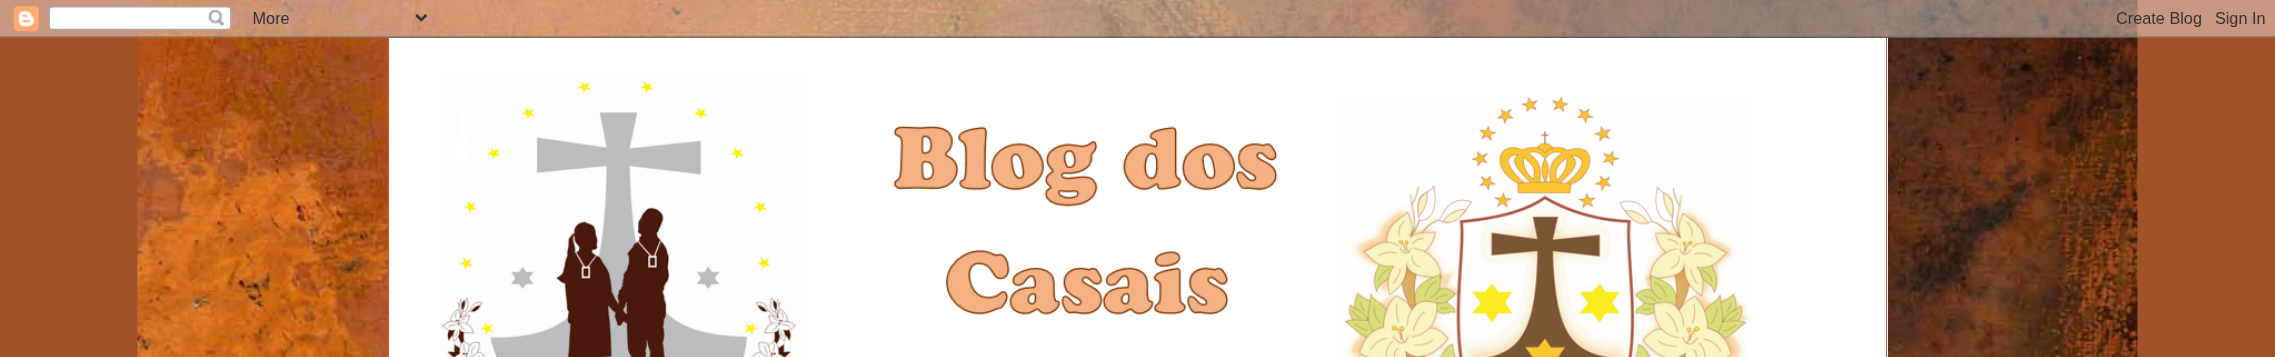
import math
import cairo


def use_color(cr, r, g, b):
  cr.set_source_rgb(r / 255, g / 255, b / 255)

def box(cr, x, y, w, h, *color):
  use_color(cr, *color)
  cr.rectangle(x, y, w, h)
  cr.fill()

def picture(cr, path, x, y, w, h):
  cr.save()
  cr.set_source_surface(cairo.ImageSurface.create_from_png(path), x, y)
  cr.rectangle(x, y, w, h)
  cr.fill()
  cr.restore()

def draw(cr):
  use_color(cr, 161, 82, 41)
  cr.paint()
  picture(cr, "img_01.png", 137, 0, 2001, 357)
  picture(cr, "img_02.png", 0, 0, 2275, 38)
  box(cr, 389, 38, 1499, 319, 255, 255, 255)
  box(cr, 1886, 38, 1, 319, 209, 78, 47)
  box(cr, 388, 38, 1, 319, 209, 78, 47)
  picture(cr, "img_03.png", 440, 79, 1312, 278)


surface = cairo.ImageSurface(cairo.FORMAT_RGB24, 2275, 357)
cr = cairo.Context(surface)
options = cairo.FontOptions()
options.set_hint_metrics(cairo.HINT_METRICS_OFF)
options.set_hint_style(cairo.HINT_STYLE_NONE)
cr.set_font_options(options)
cr.set_miter_limit(4)
draw(cr)
surface.write_to_png("out.png")
